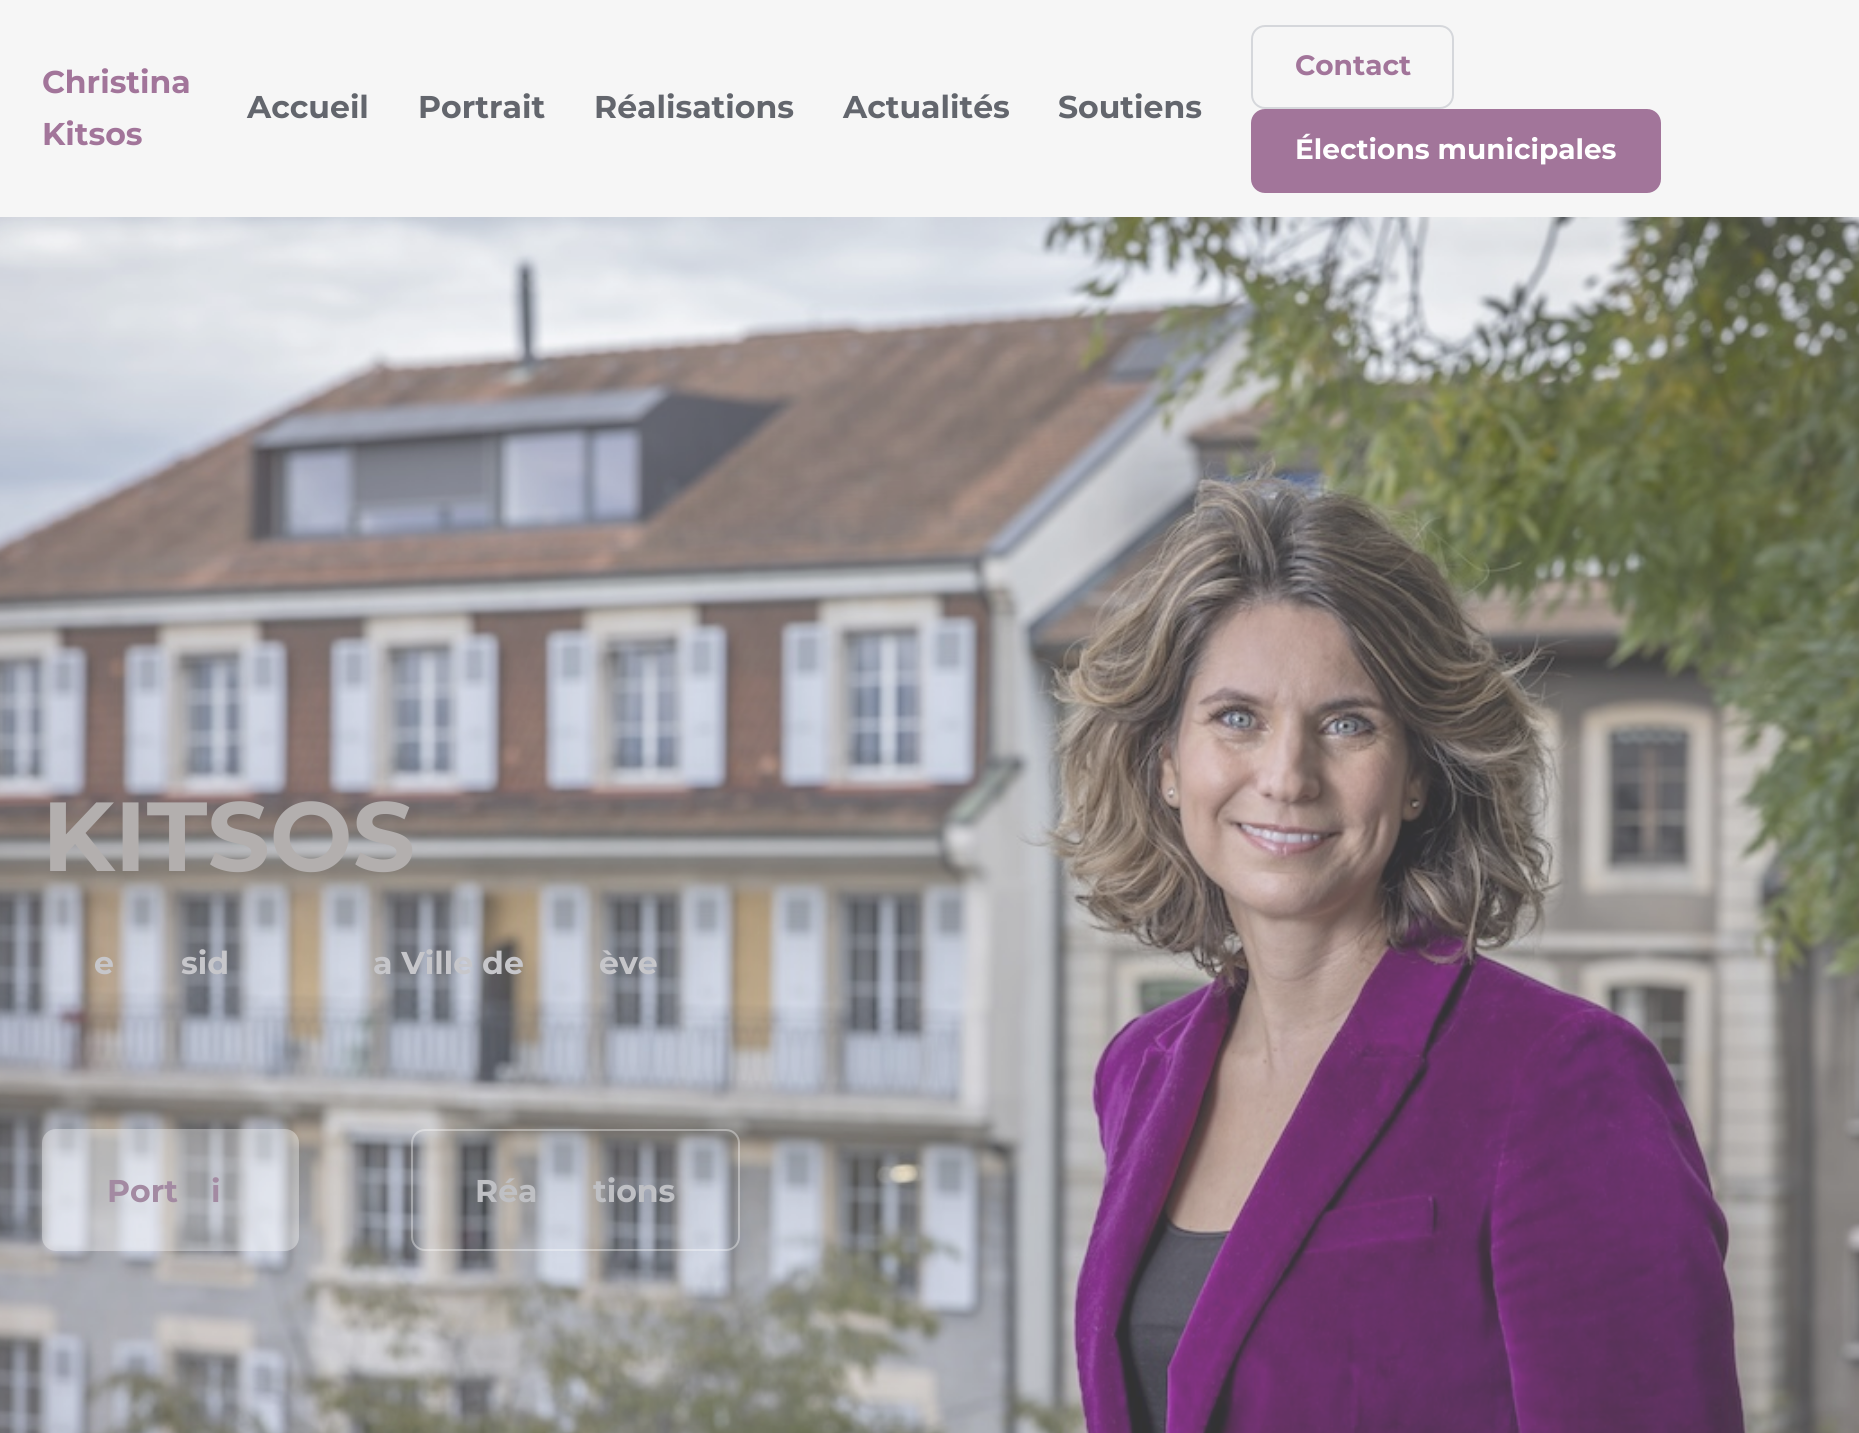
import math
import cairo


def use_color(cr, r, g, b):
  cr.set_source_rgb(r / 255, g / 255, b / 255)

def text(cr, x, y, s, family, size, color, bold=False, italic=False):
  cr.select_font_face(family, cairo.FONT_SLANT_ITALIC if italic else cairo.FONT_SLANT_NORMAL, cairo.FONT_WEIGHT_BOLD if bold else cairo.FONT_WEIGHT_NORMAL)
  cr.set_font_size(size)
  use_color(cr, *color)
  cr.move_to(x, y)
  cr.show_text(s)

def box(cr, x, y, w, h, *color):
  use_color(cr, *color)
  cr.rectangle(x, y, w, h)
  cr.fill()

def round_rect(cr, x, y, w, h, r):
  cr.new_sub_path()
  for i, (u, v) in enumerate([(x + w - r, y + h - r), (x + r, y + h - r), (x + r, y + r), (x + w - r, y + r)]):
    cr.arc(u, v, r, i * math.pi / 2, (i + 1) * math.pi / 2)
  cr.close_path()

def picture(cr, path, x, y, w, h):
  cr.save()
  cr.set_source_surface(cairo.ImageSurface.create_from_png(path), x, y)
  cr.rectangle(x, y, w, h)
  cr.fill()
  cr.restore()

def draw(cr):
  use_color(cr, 255, 255, 255)
  cr.paint()
  box(cr, 0, 0, 1859, 217, 246, 246, 246)
  round_rect(cr, 1252, 26, 201, 82, 13)
  use_color(cr, 213, 215, 219)
  cr.stroke()
  use_color(cr, 162, 117, 154)
  round_rect(cr, 1251, 109, 410, 84, 14)
  cr.fill()
  picture(cr, "img_01.png", 0, 217, 1859, 1216)
  cr.set_source_rgba(1, 1, 1, 0.36)
  round_rect(cr, 42, 1129, 257, 122, 14)
  cr.fill()
  round_rect(cr, 412, 1130, 327, 120, 13)
  cr.stroke()
  text(cr, 42, 93, "Christina", "Montserrat", 31.5, (162, 117, 154), bold=True)
  text(cr, 42, 145, "Kitsos", "Montserrat", 31.5, (162, 117, 154), bold=True)
  text(cr, 247, 118, "Accueil", "Montserrat", 31.5, (99, 102, 109), bold=True)
  text(cr, 418, 118, "Portrait", "Montserrat", 31.5, (99, 102, 109), bold=True)
  text(cr, 594, 118, "Réalisations", "Montserrat", 31.5, (99, 102, 109), bold=True)
  text(cr, 843, 118, "Actualités", "Montserrat", 31.5, (99, 102, 109), bold=True)
  text(cr, 1058, 118, "Soutiens", "Montserrat", 31.5, (99, 102, 109), bold=True)
  text(cr, 1295, 75, "Contact", "Montserrat", 28, (162, 117, 154), bold=True)
  text(cr, 1295, 159, "Élections municipales", "Montserrat", 28, (255, 255, 255), bold=True)
  text(cr, 42, 871, "KITSOS", "Montserrat", 98, (179, 175, 174), bold=True)
  text(cr, 94, 974, "e", "Montserrat", 31.5, (198, 198, 202), bold=True)
  text(cr, 181, 974, "sid", "Montserrat", 31.5, (198, 198, 202), bold=True)
  text(cr, 373, 974, "a Ville de", "Montserrat", 31.5, (198, 198, 202), bold=True)
  text(cr, 599, 974, "ève", "Montserrat", 31.5, (198, 198, 202), bold=True)
  text(cr, 107, 1202, "Port", "Montserrat", 31.5, (163, 138, 162), bold=True)
  text(cr, 211, 1202, "i", "Montserrat", 31.5, (163, 138, 162), bold=True)
  text(cr, 475, 1202, "Réa", "Montserrat", 31.5, (191, 192, 196), bold=True)
  text(cr, 593, 1202, "tions", "Montserrat", 31.5, (191, 192, 196), bold=True)


surface = cairo.ImageSurface(cairo.FORMAT_RGB24, 1859, 1433)
cr = cairo.Context(surface)
options = cairo.FontOptions()
options.set_hint_metrics(cairo.HINT_METRICS_OFF)
options.set_hint_style(cairo.HINT_STYLE_NONE)
cr.set_font_options(options)
cr.set_miter_limit(4)
draw(cr)
surface.write_to_png("out.png")
